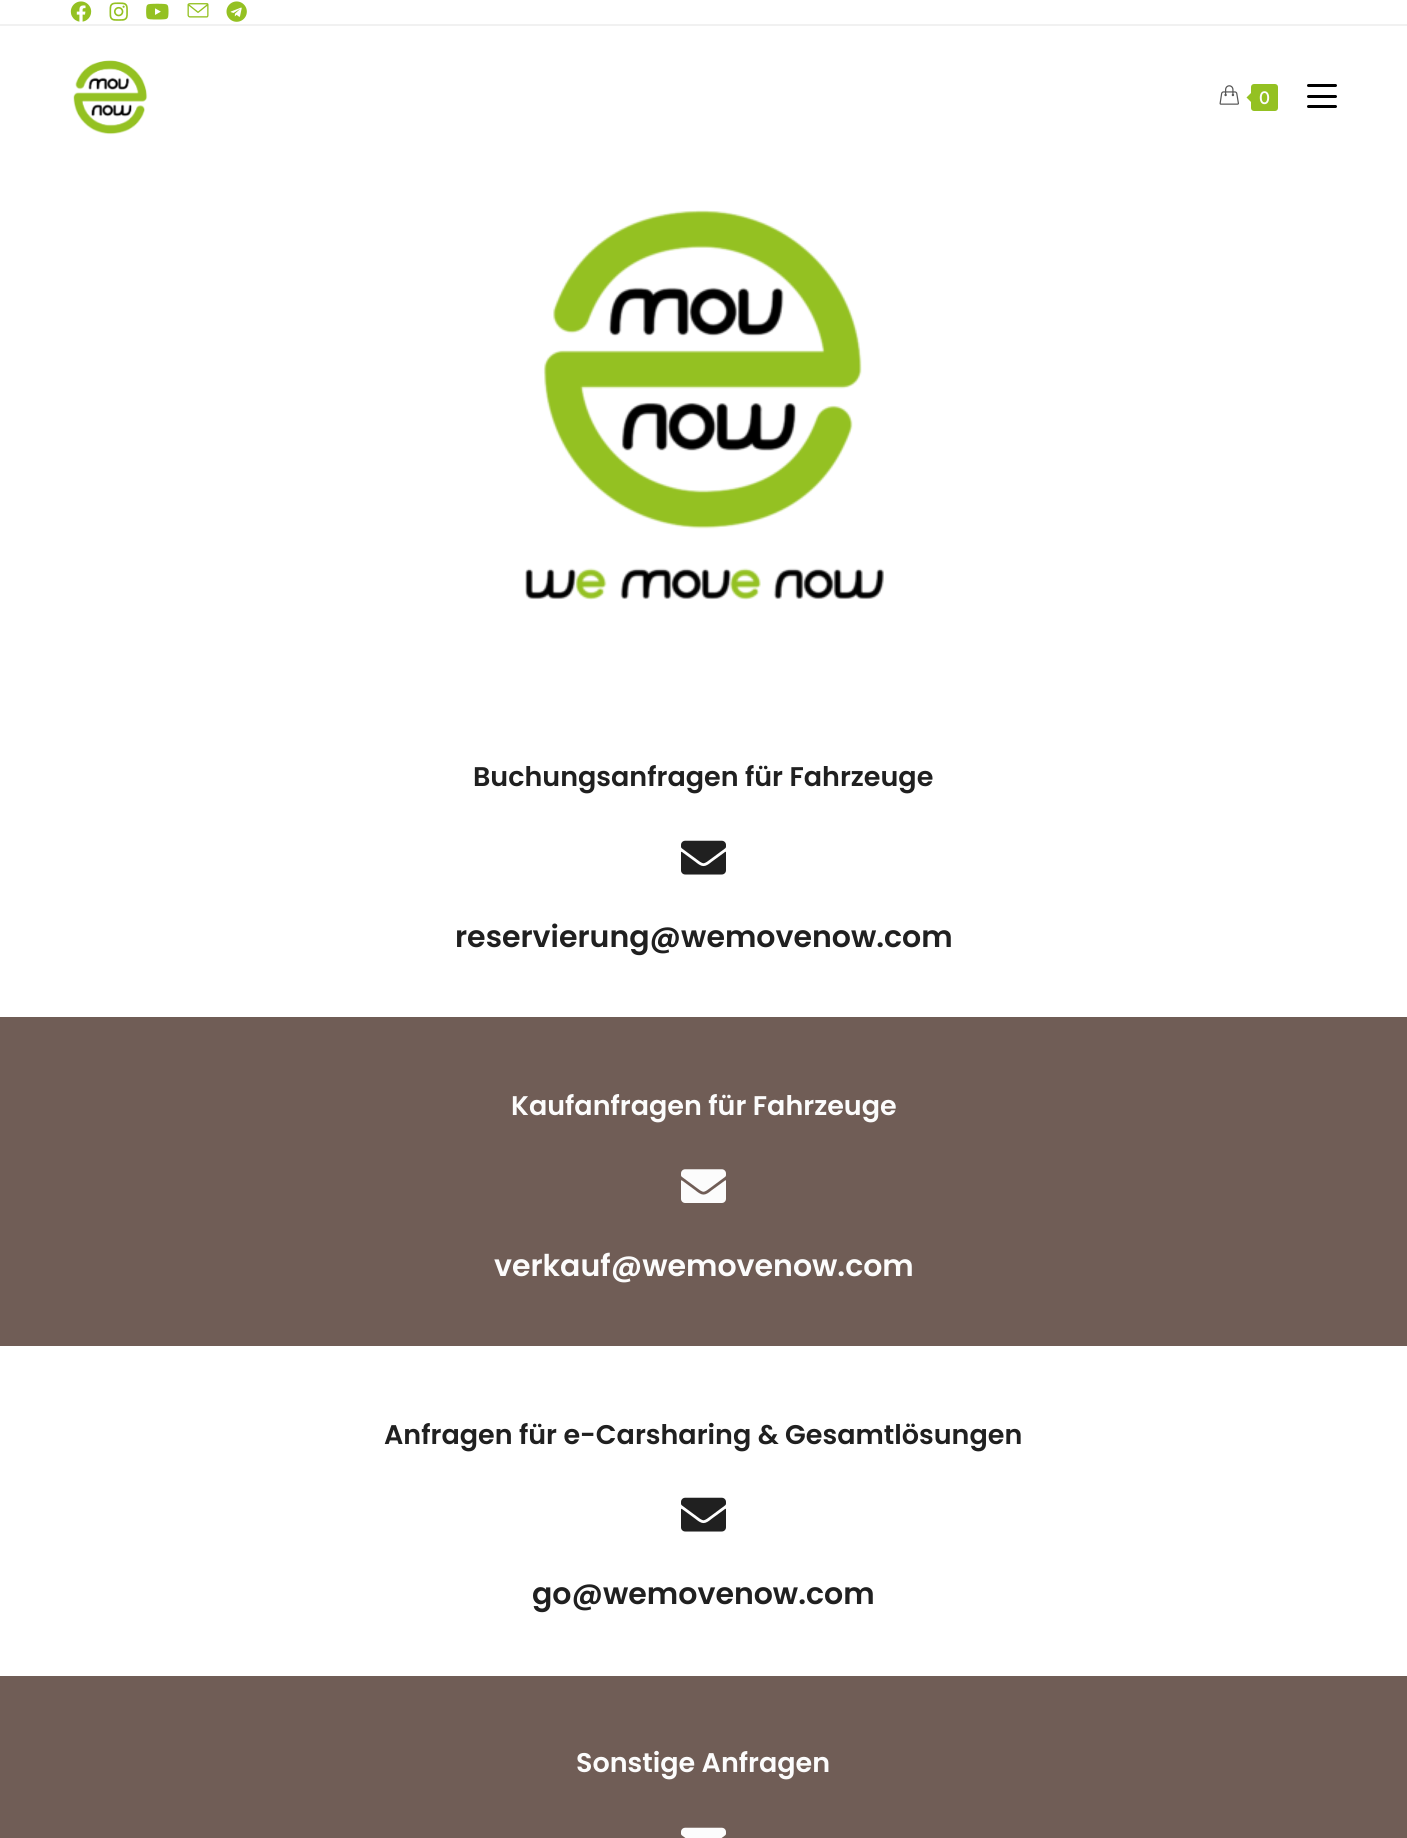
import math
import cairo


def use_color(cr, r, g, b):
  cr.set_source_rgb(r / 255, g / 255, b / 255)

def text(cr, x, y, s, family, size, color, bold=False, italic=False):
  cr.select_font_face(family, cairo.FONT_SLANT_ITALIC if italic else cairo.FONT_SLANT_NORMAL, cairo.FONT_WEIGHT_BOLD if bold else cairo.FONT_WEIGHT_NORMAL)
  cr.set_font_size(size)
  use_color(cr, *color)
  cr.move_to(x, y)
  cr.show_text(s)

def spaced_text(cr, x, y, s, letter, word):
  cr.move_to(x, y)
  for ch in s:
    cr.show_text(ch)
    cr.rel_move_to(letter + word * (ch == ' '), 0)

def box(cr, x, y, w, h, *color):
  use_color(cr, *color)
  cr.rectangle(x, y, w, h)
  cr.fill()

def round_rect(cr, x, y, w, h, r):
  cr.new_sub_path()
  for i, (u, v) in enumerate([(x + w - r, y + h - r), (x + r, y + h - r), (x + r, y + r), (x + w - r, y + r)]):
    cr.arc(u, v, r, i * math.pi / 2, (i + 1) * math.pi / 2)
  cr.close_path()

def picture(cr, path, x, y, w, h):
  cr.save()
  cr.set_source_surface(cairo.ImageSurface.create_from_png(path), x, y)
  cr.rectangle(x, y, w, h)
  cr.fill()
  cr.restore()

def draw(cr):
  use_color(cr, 255, 255, 255)
  cr.paint()
  box(cr, 0, 24, 1407, 2, 241, 241, 241)
  picture(cr, "img_01.png", 70, 1, 22, 21)
  picture(cr, "img_02.png", 109, 2, 19, 19)
  picture(cr, "img_03.png", 146, 3, 23, 17)
  picture(cr, "img_04.png", 187, 3, 22, 15)
  picture(cr, "img_05.png", 226, 1, 21, 21)
  picture(cr, "img_06.png", 73, 60, 75, 75)
  picture(cr, "img_07.png", 1219, 85, 20, 20)
  use_color(cr, 148, 193, 34)
  round_rect(cr, 1251, 84, 27, 27, 3)
  cr.fill()
  cr.new_path()
  cr.move_to(1254, 90)
  cr.line_to(1254, 105)
  cr.line_to(1246.5, 97.5)
  cr.close_path()
  cr.fill()
  use_color(cr, 0, 0, 0)
  round_rect(cr, 1307, 84, 30, 3, 1.5)
  cr.fill()
  round_rect(cr, 1307, 95, 30, 3, 1.5)
  cr.fill()
  round_rect(cr, 1307, 105, 30, 3, 1.5)
  cr.fill()
  picture(cr, "img_08.png", 525, 210, 359, 390)
  picture(cr, "img_09.png", 681, 840, 45, 35)
  box(cr, 0, 1017, 1407, 329, 112, 93, 86)
  picture(cr, "img_10.png", 681, 1169, 45, 34)
  picture(cr, "img_09.png", 681, 1497, 45, 35)
  box(cr, 0, 1676, 1407, 162, 112, 93, 86)
  picture(cr, "img_11.png", 681, 1827, 45, 11)
  cr.select_font_face("Quicksand SemiBold")
  cr.set_font_size(18)
  use_color(cr, 252, 252, 252)
  spaced_text(cr, 1259, 104, "0", 1, 0)
  text(cr, 473, 786, "Buchungsanfragen für Fahrzeuge", "Poppins SemiBold", 27, (32, 32, 32))
  text(cr, 455, 947, "reservierung@wemovenow.com", "Poppins SemiBold", 30, (32, 32, 32))
  text(cr, 511, 1115, "Kaufanfragen für Fahrzeuge", "Poppins SemiBold", 27, (252, 252, 252))
  text(cr, 494, 1276, "verkauf@wemovenow.com", "Poppins SemiBold", 30, (252, 252, 252))
  text(cr, 384, 1444, "Anfragen für e-Carsharing & Gesamtlösungen", "Poppins SemiBold", 27, (32, 32, 32))
  text(cr, 532, 1604, "go@wemovenow.com", "Poppins SemiBold", 30, (32, 32, 32))
  text(cr, 576, 1772, "Sonstige Anfragen", "Poppins SemiBold", 27, (252, 252, 252))


surface = cairo.ImageSurface(cairo.FORMAT_RGB24, 1407, 1838)
cr = cairo.Context(surface)
options = cairo.FontOptions()
options.set_hint_metrics(cairo.HINT_METRICS_OFF)
options.set_hint_style(cairo.HINT_STYLE_NONE)
cr.set_font_options(options)
cr.set_miter_limit(4)
draw(cr)
surface.write_to_png("out.png")
